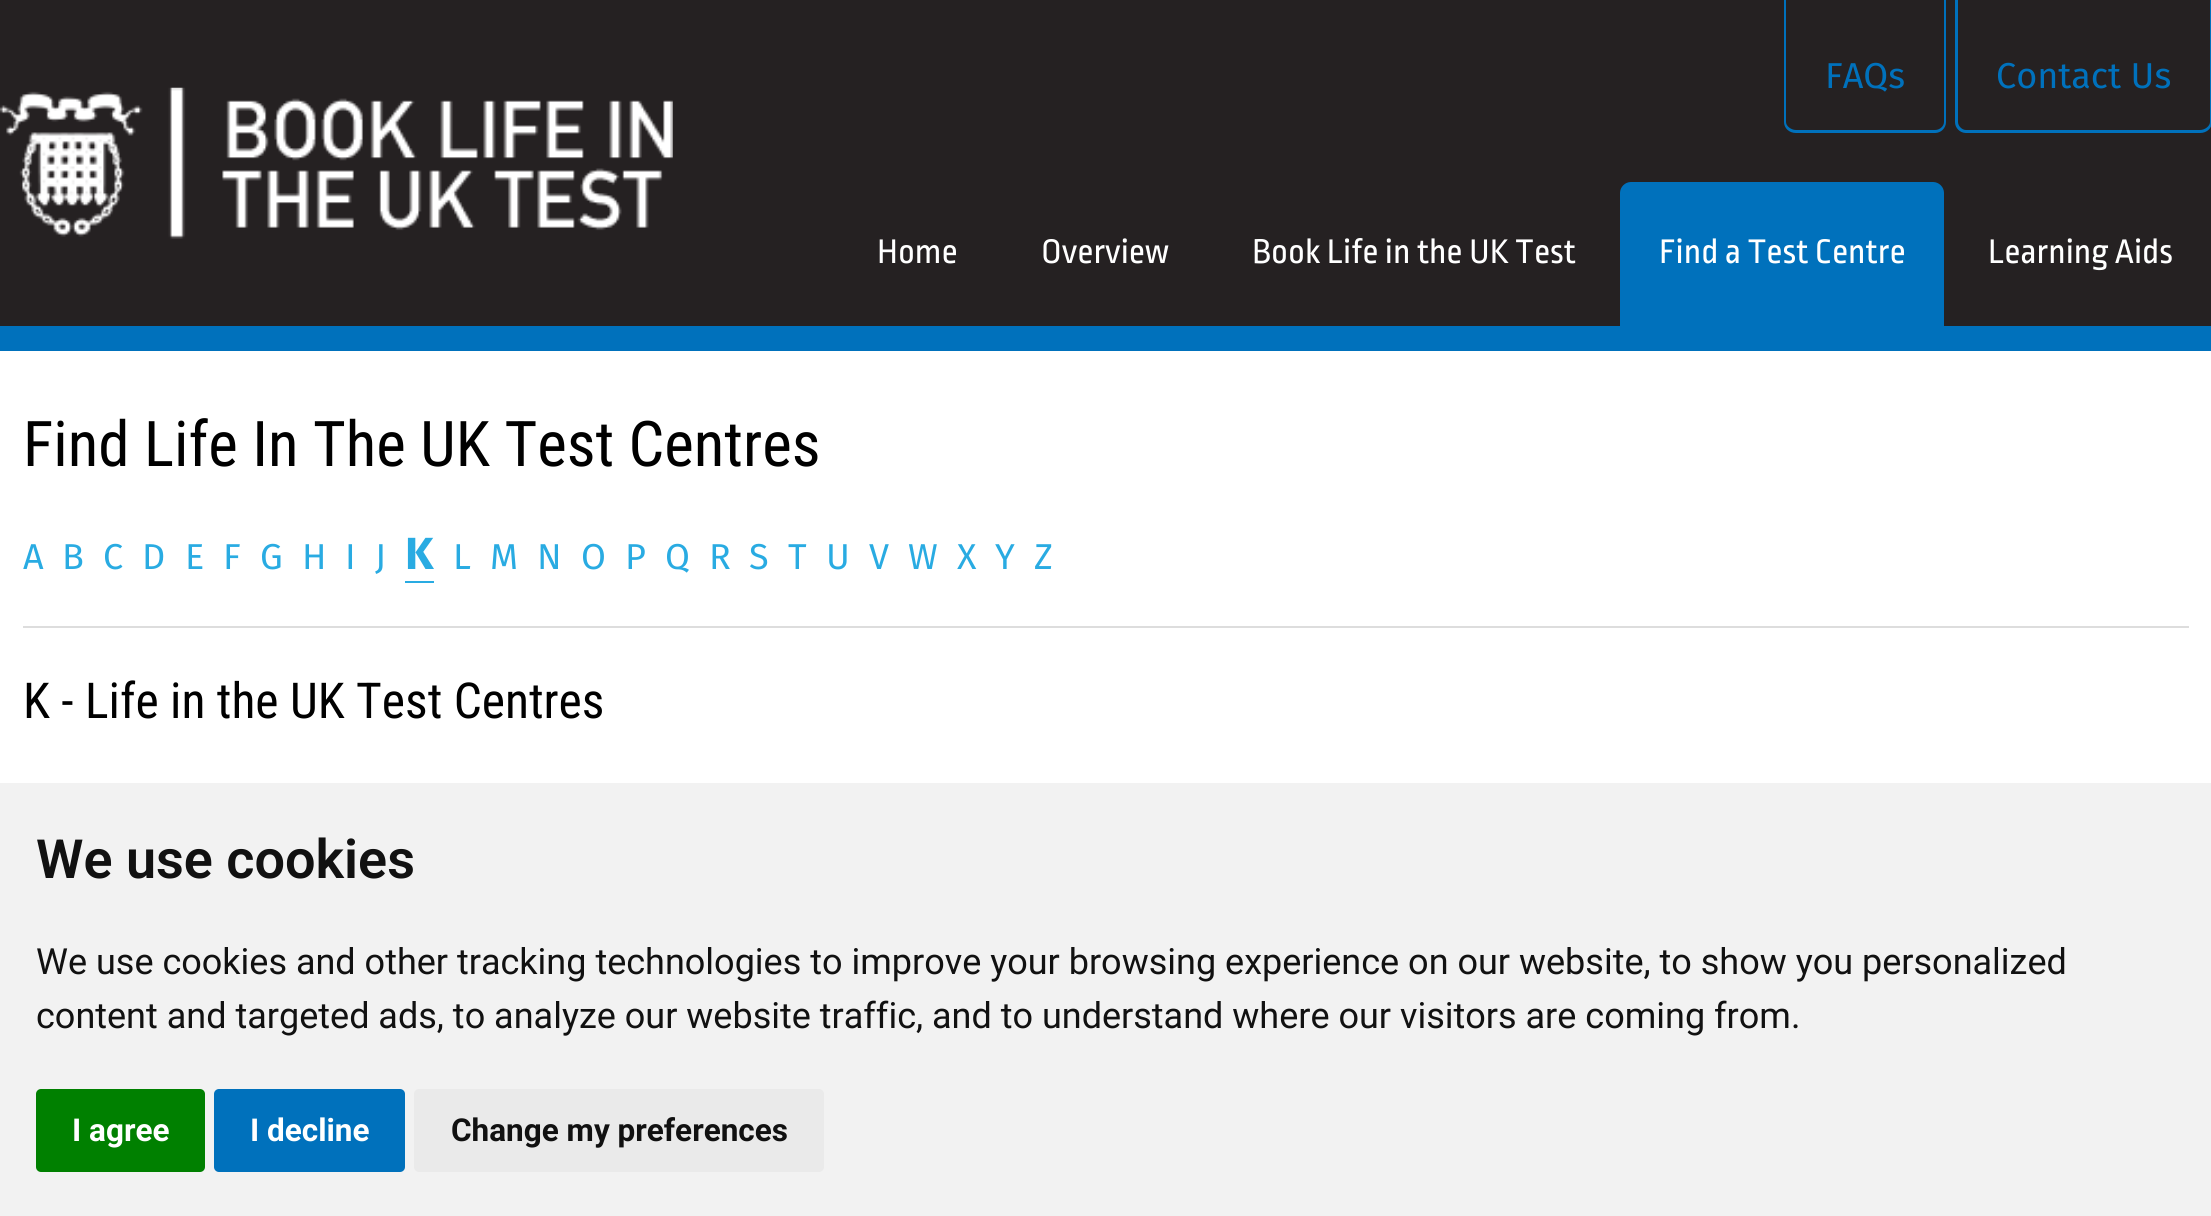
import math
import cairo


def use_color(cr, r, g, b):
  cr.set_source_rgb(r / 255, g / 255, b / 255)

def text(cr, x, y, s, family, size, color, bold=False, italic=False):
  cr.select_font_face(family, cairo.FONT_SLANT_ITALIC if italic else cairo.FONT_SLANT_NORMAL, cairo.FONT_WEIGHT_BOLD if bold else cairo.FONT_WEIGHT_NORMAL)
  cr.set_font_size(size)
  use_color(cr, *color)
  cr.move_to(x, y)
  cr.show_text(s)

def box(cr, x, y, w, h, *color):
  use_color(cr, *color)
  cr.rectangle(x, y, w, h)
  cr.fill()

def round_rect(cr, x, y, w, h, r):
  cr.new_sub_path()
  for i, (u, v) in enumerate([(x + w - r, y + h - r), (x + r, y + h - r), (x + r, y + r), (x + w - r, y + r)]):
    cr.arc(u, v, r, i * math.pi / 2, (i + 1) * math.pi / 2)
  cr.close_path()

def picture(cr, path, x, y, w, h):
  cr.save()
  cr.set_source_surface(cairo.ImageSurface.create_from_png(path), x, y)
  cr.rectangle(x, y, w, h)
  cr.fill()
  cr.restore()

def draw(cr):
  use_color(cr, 255, 255, 255)
  cr.paint()
  box(cr, 0, 0, 2211, 326, 37, 33, 34)
  box(cr, 0, 326, 2211, 25, 0, 113, 188)
  cr.set_fill_rule(cairo.FILL_RULE_EVEN_ODD)
  cr.new_path()
  cr.move_to(1784, -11)
  cr.line_to(1946, -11)
  cr.line_to(1946, 122)
  cr.curve_to(1946, 128, 1941, 133, 1935, 133)
  cr.line_to(1796, 133)
  cr.curve_to(1789, 133, 1784, 128, 1784, 122)
  cr.close_path()
  cr.move_to(1786, -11)
  cr.line_to(1944, -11)
  cr.line_to(1944, 122)
  cr.curve_to(1944, 126, 1940, 130, 1935, 130)
  cr.line_to(1796, 130)
  cr.curve_to(1791, 130, 1786, 126, 1786, 122)
  cr.close_path()
  cr.fill()
  cr.new_path()
  cr.move_to(1955, -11)
  cr.line_to(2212, -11)
  cr.line_to(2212, 122)
  cr.curve_to(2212, 128, 2207, 133, 2200, 133)
  cr.line_to(1966, 133)
  cr.curve_to(1960, 133, 1955, 128, 1955, 122)
  cr.close_path()
  cr.move_to(1958, -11)
  cr.line_to(2210, -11)
  cr.line_to(2210, 122)
  cr.curve_to(2210, 126, 2205, 130, 2200, 130)
  cr.line_to(1966, 130)
  cr.curve_to(1962, 130, 1958, 126, 1958, 122)
  cr.close_path()
  cr.fill()
  picture(cr, "img_01.png", 0, 87, 673, 152)
  cr.new_path()
  cr.move_to(1631, 182)
  cr.line_to(1933, 182)
  cr.curve_to(1939, 182, 1944, 187, 1944, 193)
  cr.line_to(1944, 326)
  cr.line_to(1620, 326)
  cr.line_to(1620, 193)
  cr.curve_to(1620, 187, 1625, 182, 1631, 182)
  cr.close_path()
  cr.fill()
  box(cr, 23, 626, 2166, 2, 221, 221, 221)
  box(cr, 405, 581, 29, 2, 41, 171, 226)
  box(cr, 0, 783, 2211, 433, 242, 242, 242)
  use_color(cr, 0, 128, 0)
  round_rect(cr, 36, 1089, 169, 83, 5)
  cr.fill()
  use_color(cr, 0, 113, 188)
  round_rect(cr, 214, 1089, 191, 83, 5)
  cr.fill()
  use_color(cr, 234, 234, 234)
  round_rect(cr, 414, 1089, 410, 83, 5)
  cr.fill()
  text(cr, 1825, 88, "FAQs", "Fira Sans", 36, (0, 113, 188))
  text(cr, 1996, 88, "Contact Us", "Fira Sans", 36, (0, 113, 188))
  text(cr, 877, 263, "Home", "Ropa Sans", 36, (255, 255, 255))
  text(cr, 1041, 263, "Overview", "Ropa Sans", 36, (255, 255, 255))
  text(cr, 1252, 263, "Book Life in the UK Test", "Ropa Sans", 36, (255, 255, 255))
  text(cr, 1659, 263, "Find a Test Centre", "Ropa Sans", 36, (255, 255, 255))
  text(cr, 1988, 263, "Learning Aids", "Ropa Sans", 36, (255, 255, 255))
  text(cr, 23, 466, "Find Life In The UK Test Centres", "Roboto Condensed", 63, (0, 0, 0))
  text(cr, 23, 569, "A", "Fira Sans", 36, (41, 171, 226))
  text(cr, 62, 569, "B", "Fira Sans", 36, (41, 171, 226))
  text(cr, 103, 569, "C", "Fira Sans", 36, (41, 171, 226))
  text(cr, 142, 569, "D", "Fira Sans", 36, (41, 171, 226))
  text(cr, 185, 569, "E", "Fira Sans", 36, (41, 171, 226))
  text(cr, 223, 569, "F", "Fira Sans", 36, (41, 171, 226))
  text(cr, 260, 569, "G", "Fira Sans", 36, (41, 171, 226))
  text(cr, 302, 569, "H", "Fira Sans", 36, (41, 171, 226))
  text(cr, 345, 569, "I", "Fira Sans", 36, (41, 171, 226))
  text(cr, 375, 569, "J", "Fira Sans", 36, (41, 171, 226))
  text(cr, 405, 569, "K", "Fira Sans", 45, (41, 171, 226), bold=True)
  text(cr, 453, 569, "L", "Fira Sans", 36, (41, 171, 226))
  text(cr, 490, 569, "M", "Fira Sans", 36, (41, 171, 226))
  text(cr, 537, 569, "N", "Fira Sans", 36, (41, 171, 226))
  text(cr, 581, 569, "O", "Fira Sans", 36, (41, 171, 226))
  text(cr, 625, 569, "P", "Fira Sans", 36, (41, 171, 226))
  text(cr, 665, 569, "Q", "Fira Sans", 36, (41, 171, 226))
  text(cr, 709, 569, "R", "Fira Sans", 36, (41, 171, 226))
  text(cr, 749, 569, "S", "Fira Sans", 36, (41, 171, 226))
  text(cr, 788, 569, "T", "Fira Sans", 36, (41, 171, 226))
  text(cr, 826, 569, "U", "Fira Sans", 36, (41, 171, 226))
  text(cr, 869, 569, "V", "Fira Sans", 36, (41, 171, 226))
  text(cr, 908, 569, "W", "Fira Sans", 36, (41, 171, 226))
  text(cr, 957, 569, "X", "Fira Sans", 36, (41, 171, 226))
  text(cr, 995, 569, "Y", "Fira Sans", 36, (41, 171, 226))
  text(cr, 1034, 569, "Z", "Fira Sans", 36, (41, 171, 226))
  text(cr, 23, 718, "K - Life in the UK Test Centres", "Roboto Condensed", 49.5, (0, 0, 0))
  text(cr, 36, 878, "We use cookies", "Roboto SemiBold", 54, (17, 17, 17))
  text(cr, 36, 974, "We use cookies and other tracking technologies to improve your browsing experience on our website, to show you personalized", "Roboto", 36, (17, 17, 17))
  text(cr, 36, 1028, "content and targeted ads, to analyze our website traffic, and to understand where our visitors are coming from.", "Roboto", 36, (17, 17, 17))
  text(cr, 72, 1141, "I agree", "Roboto", 31.5, (255, 255, 255), bold=True)
  text(cr, 250, 1141, "I decline", "Roboto", 31.5, (255, 255, 255), bold=True)
  text(cr, 451, 1141, "Change my preferences", "Roboto", 31.5, (17, 17, 17), bold=True)


surface = cairo.ImageSurface(cairo.FORMAT_RGB24, 2211, 1216)
cr = cairo.Context(surface)
options = cairo.FontOptions()
options.set_hint_metrics(cairo.HINT_METRICS_OFF)
options.set_hint_style(cairo.HINT_STYLE_NONE)
cr.set_font_options(options)
cr.set_miter_limit(4)
draw(cr)
surface.write_to_png("out.png")
